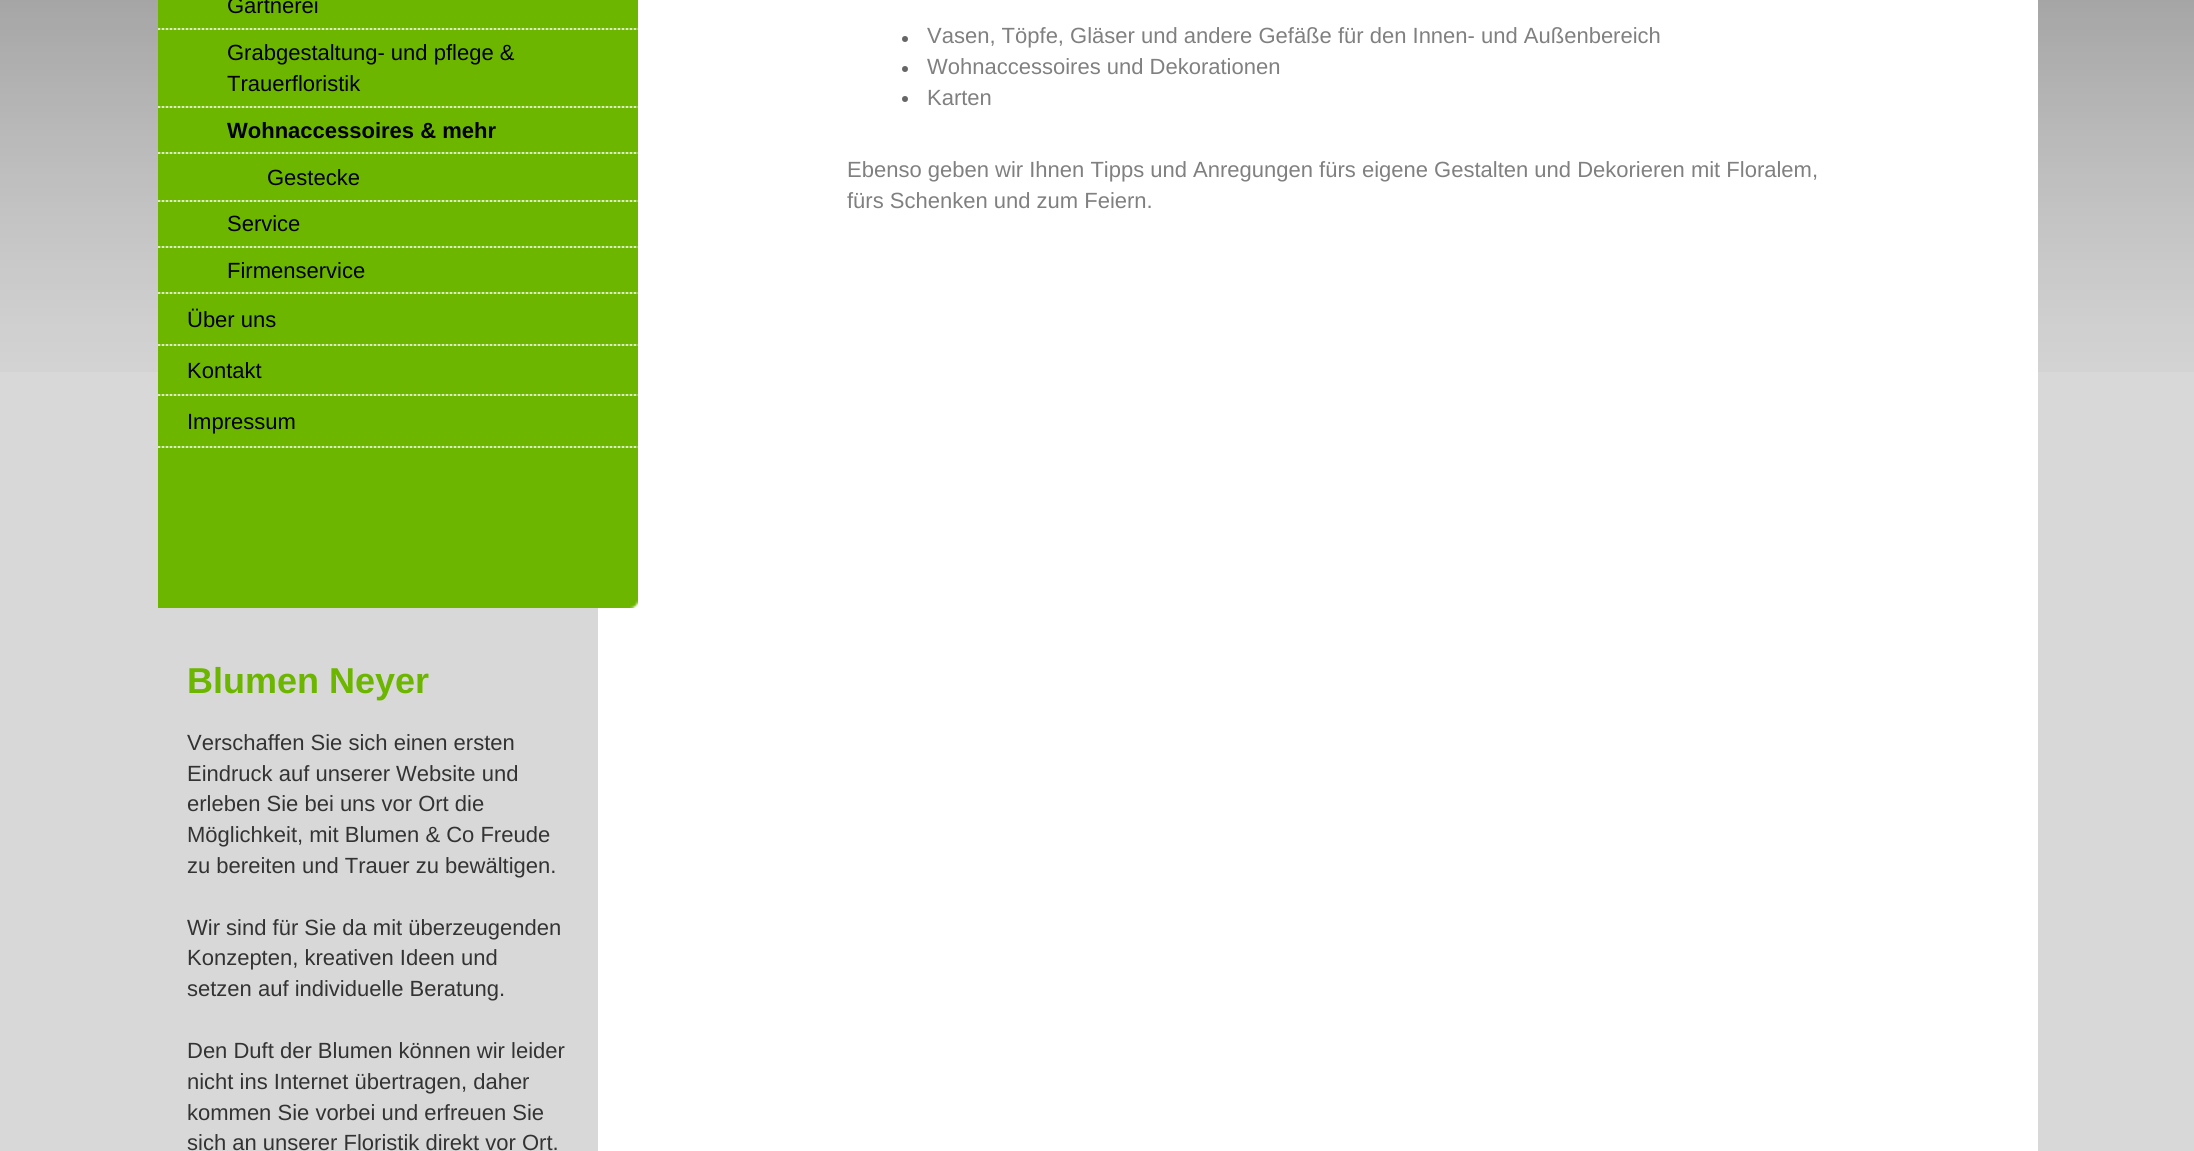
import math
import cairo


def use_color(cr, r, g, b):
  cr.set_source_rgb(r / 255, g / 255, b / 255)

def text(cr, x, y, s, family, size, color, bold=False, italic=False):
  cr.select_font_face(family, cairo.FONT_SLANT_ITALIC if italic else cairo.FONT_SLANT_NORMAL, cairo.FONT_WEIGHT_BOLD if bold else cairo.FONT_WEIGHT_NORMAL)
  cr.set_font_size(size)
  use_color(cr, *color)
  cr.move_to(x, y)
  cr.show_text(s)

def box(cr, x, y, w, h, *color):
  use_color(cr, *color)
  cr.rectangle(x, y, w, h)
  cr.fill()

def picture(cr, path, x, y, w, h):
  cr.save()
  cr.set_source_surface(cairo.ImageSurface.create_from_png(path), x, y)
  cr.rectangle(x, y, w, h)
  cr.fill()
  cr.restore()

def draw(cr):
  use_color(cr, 216, 216, 216)
  cr.paint()
  picture(cr, "img_01.png", 0, 0, 2194, 372)
  box(cr, 598, 0, 1440, 1151, 255, 255, 255)
  box(cr, 158, 0, 480, 608, 108, 182, 0)
  picture(cr, "img_02.png", 630, 600, 8, 8)
  picture(cr, "img_03.png", 158, 28, 480, 2)
  picture(cr, "img_03.png", 158, 106, 480, 2)
  picture(cr, "img_03.png", 158, 152, 480, 2)
  picture(cr, "img_03.png", 158, 200, 480, 2)
  picture(cr, "img_03.png", 158, 246, 480, 2)
  picture(cr, "img_03.png", 158, 292, 480, 2)
  picture(cr, "img_03.png", 158, 344, 480, 2)
  picture(cr, "img_03.png", 158, 394, 480, 2)
  picture(cr, "img_03.png", 158, 446, 480, 2)
  use_color(cr, 102, 102, 102)
  cr.arc(905, 39, 3, 0, 2 * math.pi)
  cr.fill()
  cr.arc(905, 69, 3, 0, 2 * math.pi)
  cr.fill()
  cr.arc(905, 99, 3, 0, 2 * math.pi)
  cr.fill()
  text(cr, 227, 13, "Gärtnerei", "Liberation Sans", 22, (0, 0, 0))
  text(cr, 227, 60, "Grabgestaltung- und pflege &", "Liberation Sans", 22, (0, 0, 0))
  text(cr, 227, 91, "Trauerfloristik", "Liberation Sans", 22, (0, 0, 0))
  text(cr, 227, 138, "Wohnaccessoires & mehr", "Liberation Sans", 22, (0, 0, 0), bold=True)
  text(cr, 267, 185, "Gestecke", "Liberation Sans", 22, (0, 0, 0))
  text(cr, 227, 231, "Service", "Liberation Sans", 22, (0, 0, 0))
  text(cr, 227, 278, "Firmenservice", "Liberation Sans", 22, (0, 0, 0))
  text(cr, 187, 327, "Über uns", "Liberation Sans", 22, (0, 0, 0))
  text(cr, 187, 378, "Kontakt", "Liberation Sans", 22, (0, 0, 0))
  text(cr, 187, 429, "Impressum", "Liberation Sans", 22, (0, 0, 0))
  text(cr, 187, 693, "Blumen Neyer", "Liberation Sans", 36, (108, 182, 0), bold=True)
  text(cr, 187, 750, "Verschaffen Sie sich einen ersten", "Liberation Sans", 22, (51, 51, 51))
  text(cr, 187, 781, "Eindruck auf unserer Website und", "Liberation Sans", 22, (51, 51, 51))
  text(cr, 187, 811, "erleben Sie bei uns vor Ort die", "Liberation Sans", 22, (51, 51, 51))
  text(cr, 187, 842, "Möglichkeit, mit Blumen & Co Freude", "Liberation Sans", 22, (51, 51, 51))
  text(cr, 187, 873, "zu bereiten und Trauer zu bewältigen.", "Liberation Sans", 22, (51, 51, 51))
  text(cr, 187, 935, "Wir sind für Sie da mit überzeugenden", "Liberation Sans", 22, (51, 51, 51))
  text(cr, 187, 965, "Konzepten, kreativen Ideen und", "Liberation Sans", 22, (51, 51, 51))
  text(cr, 187, 996, "setzen auf individuelle Beratung.", "Liberation Sans", 22, (51, 51, 51))
  text(cr, 187, 1058, "Den Duft der Blumen können wir leider", "Liberation Sans", 22, (51, 51, 51))
  text(cr, 187, 1089, "nicht ins Internet übertragen, daher", "Liberation Sans", 22, (51, 51, 51))
  text(cr, 187, 1120, "kommen Sie vorbei und erfreuen Sie", "Liberation Sans", 22, (51, 51, 51))
  text(cr, 187, 1150, "sich an unserer Floristik direkt vor Ort.", "Liberation Sans", 22, (51, 51, 51))
  text(cr, 927, 43, "Vasen, Töpfe, Gläser und andere Gefäße für den Innen- und Außenbereich", "Liberation Sans", 22, (128, 128, 128))
  text(cr, 927, 74, "Wohnaccessoires und Dekorationen", "Liberation Sans", 22, (128, 128, 128))
  text(cr, 927, 105, "Karten", "Liberation Sans", 22, (128, 128, 128))
  text(cr, 847, 177, "Ebenso geben wir Ihnen Tipps und Anregungen fürs eigene Gestalten und Dekorieren mit Floralem,", "Liberation Sans", 22, (128, 128, 128))
  text(cr, 847, 208, "fürs Schenken und zum Feiern.", "Liberation Sans", 22, (128, 128, 128))


surface = cairo.ImageSurface(cairo.FORMAT_RGB24, 2194, 1151)
cr = cairo.Context(surface)
options = cairo.FontOptions()
options.set_hint_metrics(cairo.HINT_METRICS_OFF)
options.set_hint_style(cairo.HINT_STYLE_NONE)
cr.set_font_options(options)
cr.set_miter_limit(4)
draw(cr)
surface.write_to_png("out.png")
